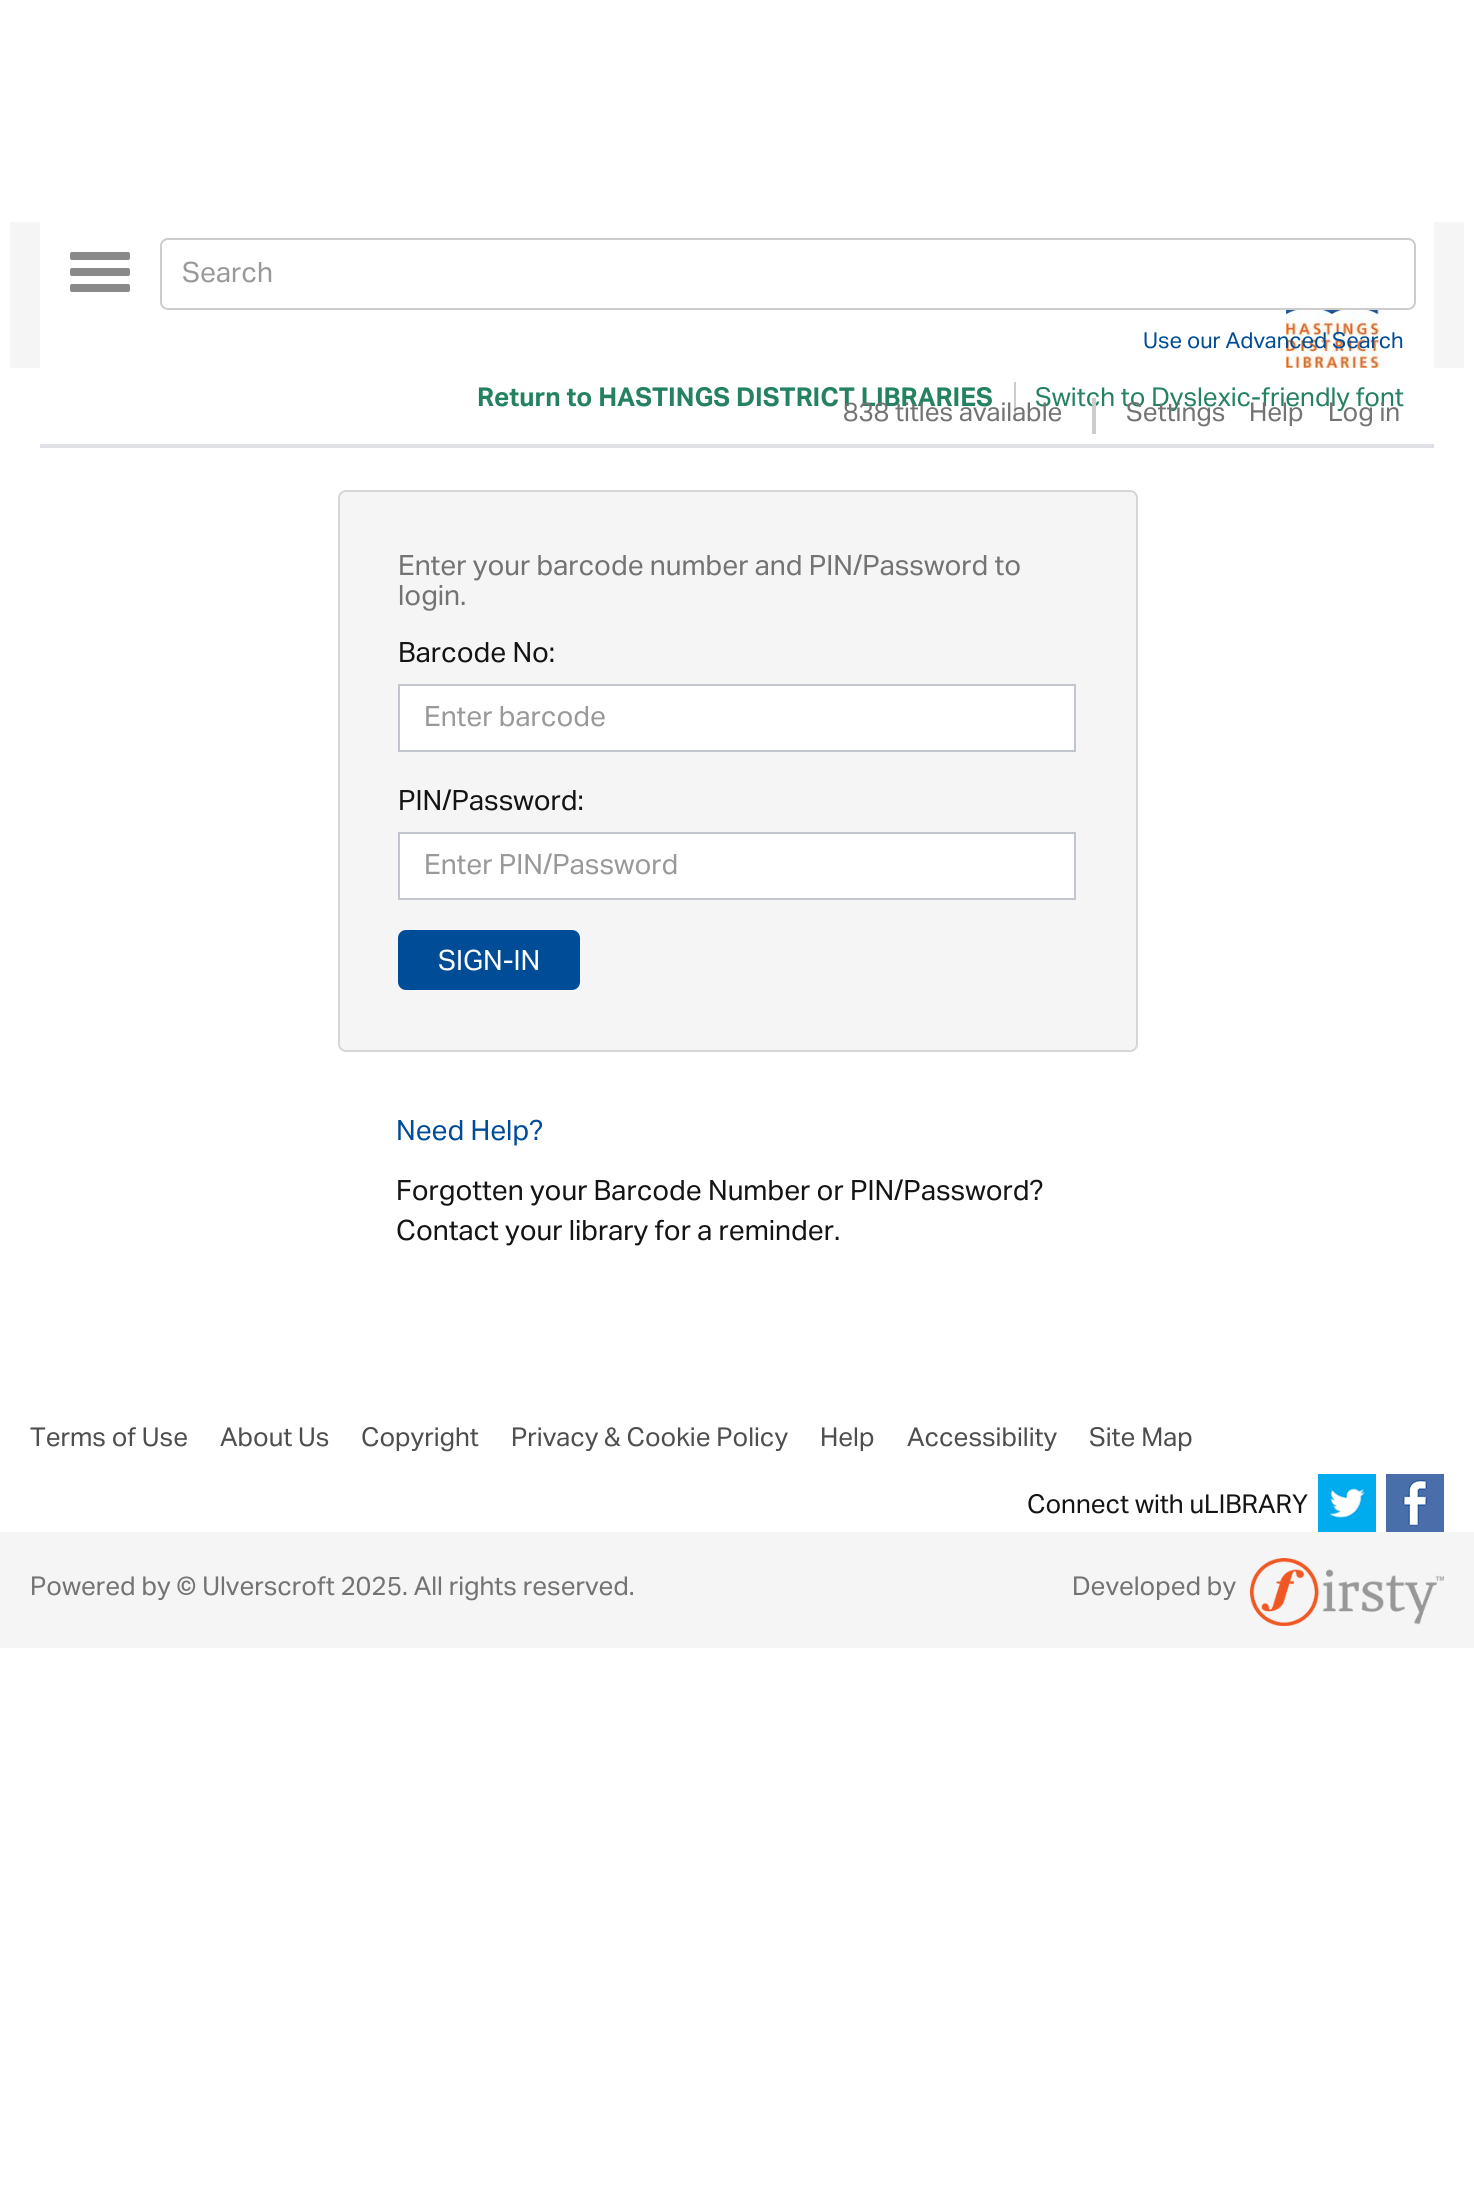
import math
import cairo


def use_color(cr, r, g, b):
  cr.set_source_rgb(r / 255, g / 255, b / 255)

def text(cr, x, y, s, family, size, color, bold=False, italic=False):
  cr.select_font_face(family, cairo.FONT_SLANT_ITALIC if italic else cairo.FONT_SLANT_NORMAL, cairo.FONT_WEIGHT_BOLD if bold else cairo.FONT_WEIGHT_NORMAL)
  cr.set_font_size(size)
  use_color(cr, *color)
  cr.move_to(x, y)
  cr.show_text(s)

def box(cr, x, y, w, h, *color):
  use_color(cr, *color)
  cr.rectangle(x, y, w, h)
  cr.fill()

def round_rect(cr, x, y, w, h, r):
  cr.new_sub_path()
  for i, (u, v) in enumerate([(x + w - r, y + h - r), (x + r, y + h - r), (x + r, y + r), (x + w - r, y + r)]):
    cr.arc(u, v, r, i * math.pi / 2, (i + 1) * math.pi / 2)
  cr.close_path()

def picture(cr, path, x, y, w, h):
  cr.save()
  cr.set_source_surface(cairo.ImageSurface.create_from_png(path), x, y)
  cr.rectangle(x, y, w, h)
  cr.fill()
  cr.restore()

def draw(cr):
  use_color(cr, 255, 255, 255)
  cr.paint()
  box(cr, 10, 222, 1454, 146, 245, 245, 245)
  box(cr, 40, 222, 1394, 146, 255, 255, 255)
  use_color(cr, 136, 136, 136)
  round_rect(cr, 70, 252, 60, 8, 2)
  cr.fill()
  round_rect(cr, 70, 268, 60, 8, 2)
  cr.fill()
  round_rect(cr, 70, 284, 60, 8, 2)
  cr.fill()
  picture(cr, "img_01.png", 1286, 310, 98, 58)
  cr.set_source_rgba(1, 1, 1, 0.1)
  cr.rectangle(1286, 310, 93, 2)
  cr.fill()
  round_rect(cr, 161, 239, 1254, 70, 7)
  use_color(cr, 204, 204, 204)
  cr.stroke()
  box(cr, 1014, 382, 2, 38, 204, 204, 204)
  box(cr, 40, 444, 1394, 4, 223, 225, 231)
  use_color(cr, 245, 245, 245)
  round_rect(cr, 339, 491, 798, 560, 7)
  cr.fill_preserve()
  use_color(cr, 214, 214, 214)
  cr.stroke()
  use_color(cr, 255, 255, 255)
  cr.rectangle(399, 685, 676, 66)
  cr.fill_preserve()
  use_color(cr, 193, 197, 206)
  cr.stroke()
  use_color(cr, 255, 255, 255)
  cr.rectangle(399, 833, 676, 66)
  cr.fill_preserve()
  use_color(cr, 193, 197, 206)
  cr.stroke()
  use_color(cr, 0, 76, 151)
  round_rect(cr, 398, 930, 182, 60, 8)
  cr.fill()
  picture(cr, "img_02.png", 1318, 1474, 58, 58)
  picture(cr, "img_03.png", 1386, 1474, 58, 58)
  box(cr, 0, 1532, 1474, 116, 245, 245, 245)
  picture(cr, "img_04.png", 1250, 1558, 194, 68)
  text(cr, 182, 282, "Search", "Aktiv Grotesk", 28, (153, 153, 153))
  text(cr, 1143, 348, "Use our Advanced Search", "Aktiv Grotesk", 22, (0, 76, 151))
  text(cr, 477, 406, "Return to HASTINGS DISTRICT LIBRARIES", "Aktiv Grotesk", 26, (37, 130, 96), bold=True)
  text(cr, 1035, 406, "Switch to Dyslexic-friendly font", "Aktiv Grotesk", 26, (37, 130, 96))
  text(cr, 843, 421, "838 titles available", "Aktiv Grotesk", 26, (115, 115, 115))
  box(cr, 1092, 398, 4, 36, 204, 204, 204)
  text(cr, 1126, 421, "Settings", "Aktiv Grotesk", 26, (115, 115, 115))
  text(cr, 1249, 421, "Help", "Aktiv Grotesk", 26, (115, 115, 115))
  text(cr, 1328, 421, "Log in", "Aktiv Grotesk", 26, (115, 115, 115))
  text(cr, 398, 575, "Enter your barcode number and PIN/Password to", "Aktiv Grotesk", 28, (115, 115, 115))
  text(cr, 398, 605, "login.", "Aktiv Grotesk", 28, (115, 115, 115))
  text(cr, 398, 662, "Barcode No:", "Aktiv Grotesk", 28, (20, 20, 20))
  text(cr, 424, 726, "Enter barcode", "Aktiv Grotesk", 28, (153, 153, 153))
  text(cr, 398, 810, "PIN/Password:", "Aktiv Grotesk", 28, (20, 20, 20))
  text(cr, 424, 874, "Enter PIN/Password", "Aktiv Grotesk", 28, (153, 153, 153))
  text(cr, 438, 970, "SIGN-IN", "Aktiv Grotesk", 28, (255, 255, 255))
  text(cr, 396, 1140, "Need Help?", "Aktiv Grotesk", 28, (0, 76, 151))
  text(cr, 396, 1200, "Forgotten your Barcode Number or PIN/Password?", "Aktiv Grotesk", 28, (20, 20, 20))
  text(cr, 396, 1240, "Contact your library for a reminder.", "Aktiv Grotesk", 28, (20, 20, 20))
  text(cr, 30, 1446, "Terms of Use", "Aktiv Grotesk", 26, (78, 78, 78))
  text(cr, 220, 1446, "About Us", "Aktiv Grotesk", 26, (78, 78, 78))
  text(cr, 361, 1446, "Copyright", "Aktiv Grotesk", 26, (78, 78, 78))
  text(cr, 511, 1446, "Privacy & Cookie Policy", "Aktiv Grotesk", 26, (78, 78, 78))
  text(cr, 820, 1446, "Help", "Aktiv Grotesk", 26, (78, 78, 78))
  text(cr, 907, 1446, "Accessibility", "Aktiv Grotesk", 26, (78, 78, 78))
  text(cr, 1089, 1446, "Site Map", "Aktiv Grotesk", 26, (78, 78, 78))
  text(cr, 1027, 1513, "Connect with uLIBRARY", "Aktiv Grotesk", 26, (20, 20, 20))
  text(cr, 30, 1595, "Powered by © Ulverscroft 2025. All rights reserved.", "Aktiv Grotesk", 26, (115, 115, 115))
  text(cr, 1072, 1595, "Developed by", "Aktiv Grotesk", 26, (115, 115, 115))


surface = cairo.ImageSurface(cairo.FORMAT_RGB24, 1474, 2188)
cr = cairo.Context(surface)
options = cairo.FontOptions()
options.set_hint_metrics(cairo.HINT_METRICS_OFF)
options.set_hint_style(cairo.HINT_STYLE_NONE)
cr.set_font_options(options)
cr.set_miter_limit(4)
draw(cr)
surface.write_to_png("out.png")
